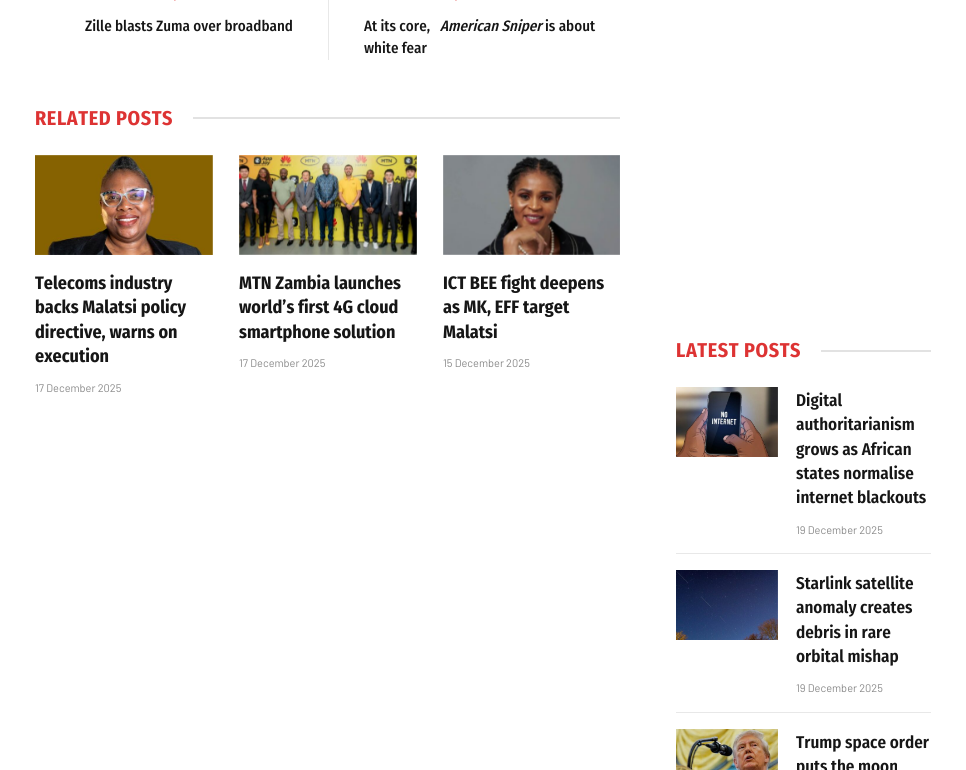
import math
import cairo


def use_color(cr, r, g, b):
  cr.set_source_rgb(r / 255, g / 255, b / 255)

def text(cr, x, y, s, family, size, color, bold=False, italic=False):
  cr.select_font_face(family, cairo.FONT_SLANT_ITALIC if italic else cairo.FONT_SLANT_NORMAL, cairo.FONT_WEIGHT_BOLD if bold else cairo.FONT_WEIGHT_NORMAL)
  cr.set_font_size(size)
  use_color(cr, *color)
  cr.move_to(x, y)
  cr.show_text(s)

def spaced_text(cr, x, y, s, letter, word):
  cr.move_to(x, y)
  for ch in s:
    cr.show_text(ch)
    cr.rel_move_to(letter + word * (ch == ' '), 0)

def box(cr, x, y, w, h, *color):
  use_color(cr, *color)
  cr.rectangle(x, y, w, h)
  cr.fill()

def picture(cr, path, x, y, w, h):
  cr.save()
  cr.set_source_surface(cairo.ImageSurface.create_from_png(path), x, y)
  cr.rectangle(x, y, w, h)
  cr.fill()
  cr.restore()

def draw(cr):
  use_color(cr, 255, 255, 255)
  cr.paint()
  picture(cr, "img_01.png", 174, 0, 2, 1)
  box(cr, 328, 0, 1, 60, 232, 232, 232)
  picture(cr, "img_02.png", 455, 0, 2, 1)
  box(cr, 193, 117, 427, 2, 226, 226, 226)
  picture(cr, "img_03.png", 35, 155, 178, 100)
  picture(cr, "img_04.png", 239, 155, 178, 100)
  picture(cr, "img_05.png", 443, 155, 177, 100)
  box(cr, 821, 350, 110, 2, 226, 226, 226)
  picture(cr, "img_06.png", 676, 387, 102, 70)
  box(cr, 676, 553, 255, 1, 232, 232, 232)
  picture(cr, "img_07.png", 676, 570, 102, 70)
  box(cr, 676, 712, 255, 1, 232, 232, 232)
  picture(cr, "img_08.png", 676, 729, 102, 41)
  text(cr, 85, 31, "Zille blasts Zuma over broadband", "Fira Sans Condensed Medium", 15, (22, 22, 22))
  text(cr, 364, 31, "At its core,", "Fira Sans Condensed Medium", 15, (22, 22, 22))
  text(cr, 440, 31, "American Sniper", "Fira Sans Condensed Medium", 15, (22, 22, 22), italic=True)
  text(cr, 545, 31, "is about", "Fira Sans Condensed Medium", 15, (22, 22, 22))
  text(cr, 364, 53, "white fear", "Fira Sans Condensed Medium", 15, (22, 22, 22))
  cr.select_font_face("Fira Sans Condensed", cairo.FONT_SLANT_NORMAL, cairo.FONT_WEIGHT_BOLD)
  cr.set_font_size(20)
  use_color(cr, 221, 51, 51)
  spaced_text(cr, 35, 125, "RELATED POSTS", 0.6, 0)
  text(cr, 35, 289, "Telecoms industry", "Fira Sans Condensed", 18, (22, 22, 22), bold=True)
  text(cr, 35, 313, "backs Malatsi policy", "Fira Sans Condensed", 18, (22, 22, 22), bold=True)
  text(cr, 35, 338, "directive, warns on", "Fira Sans Condensed", 18, (22, 22, 22), bold=True)
  text(cr, 35, 362, "execution", "Fira Sans Condensed", 18, (22, 22, 22), bold=True)
  text(cr, 35, 392, "17 December 2025", "Barlow", 11, (138, 138, 138))
  text(cr, 239, 289, "MTN Zambia launches", "Fira Sans Condensed", 18, (22, 22, 22), bold=True)
  text(cr, 239, 313, "world’s first 4G cloud", "Fira Sans Condensed", 18, (22, 22, 22), bold=True)
  text(cr, 239, 338, "smartphone solution", "Fira Sans Condensed", 18, (22, 22, 22), bold=True)
  text(cr, 239, 367, "17 December 2025", "Barlow", 11, (138, 138, 138))
  text(cr, 443, 289, "ICT BEE fight deepens", "Fira Sans Condensed", 18, (22, 22, 22), bold=True)
  text(cr, 443, 313, "as MK, EFF target", "Fira Sans Condensed", 18, (22, 22, 22), bold=True)
  text(cr, 443, 338, "Malatsi", "Fira Sans Condensed", 18, (22, 22, 22), bold=True)
  text(cr, 443, 367, "15 December 2025", "Barlow", 11, (138, 138, 138))
  cr.select_font_face("Fira Sans Condensed", cairo.FONT_SLANT_NORMAL, cairo.FONT_WEIGHT_BOLD)
  cr.set_font_size(20)
  use_color(cr, 221, 51, 51)
  spaced_text(cr, 676, 357, "LATEST POSTS", 0.6, 0)
  text(cr, 796, 406, "Digital", "Fira Sans Condensed SemiBold", 17, (22, 22, 22))
  text(cr, 796, 430, "authoritarianism", "Fira Sans Condensed SemiBold", 17, (22, 22, 22))
  text(cr, 796, 455, "grows as African", "Fira Sans Condensed SemiBold", 17, (22, 22, 22))
  text(cr, 796, 479, "states normalise", "Fira Sans Condensed SemiBold", 17, (22, 22, 22))
  text(cr, 796, 503, "internet blackouts", "Fira Sans Condensed SemiBold", 17, (22, 22, 22))
  text(cr, 796, 534, "19 December 2025", "Barlow", 11, (138, 138, 138))
  text(cr, 796, 589, "Starlink satellite", "Fira Sans Condensed SemiBold", 17, (22, 22, 22))
  text(cr, 796, 613, "anomaly creates", "Fira Sans Condensed SemiBold", 17, (22, 22, 22))
  text(cr, 796, 638, "debris in rare", "Fira Sans Condensed SemiBold", 17, (22, 22, 22))
  text(cr, 796, 662, "orbital mishap", "Fira Sans Condensed SemiBold", 17, (22, 22, 22))
  text(cr, 796, 692, "19 December 2025", "Barlow", 11, (138, 138, 138))
  text(cr, 796, 748, "Trump space order", "Fira Sans Condensed SemiBold", 17, (22, 22, 22))
  text(cr, 796, 772, "puts the moon", "Fira Sans Condensed SemiBold", 17, (22, 22, 22))


surface = cairo.ImageSurface(cairo.FORMAT_RGB24, 966, 770)
cr = cairo.Context(surface)
options = cairo.FontOptions()
options.set_hint_metrics(cairo.HINT_METRICS_OFF)
options.set_hint_style(cairo.HINT_STYLE_NONE)
cr.set_font_options(options)
cr.set_miter_limit(4)
draw(cr)
surface.write_to_png("out.png")
